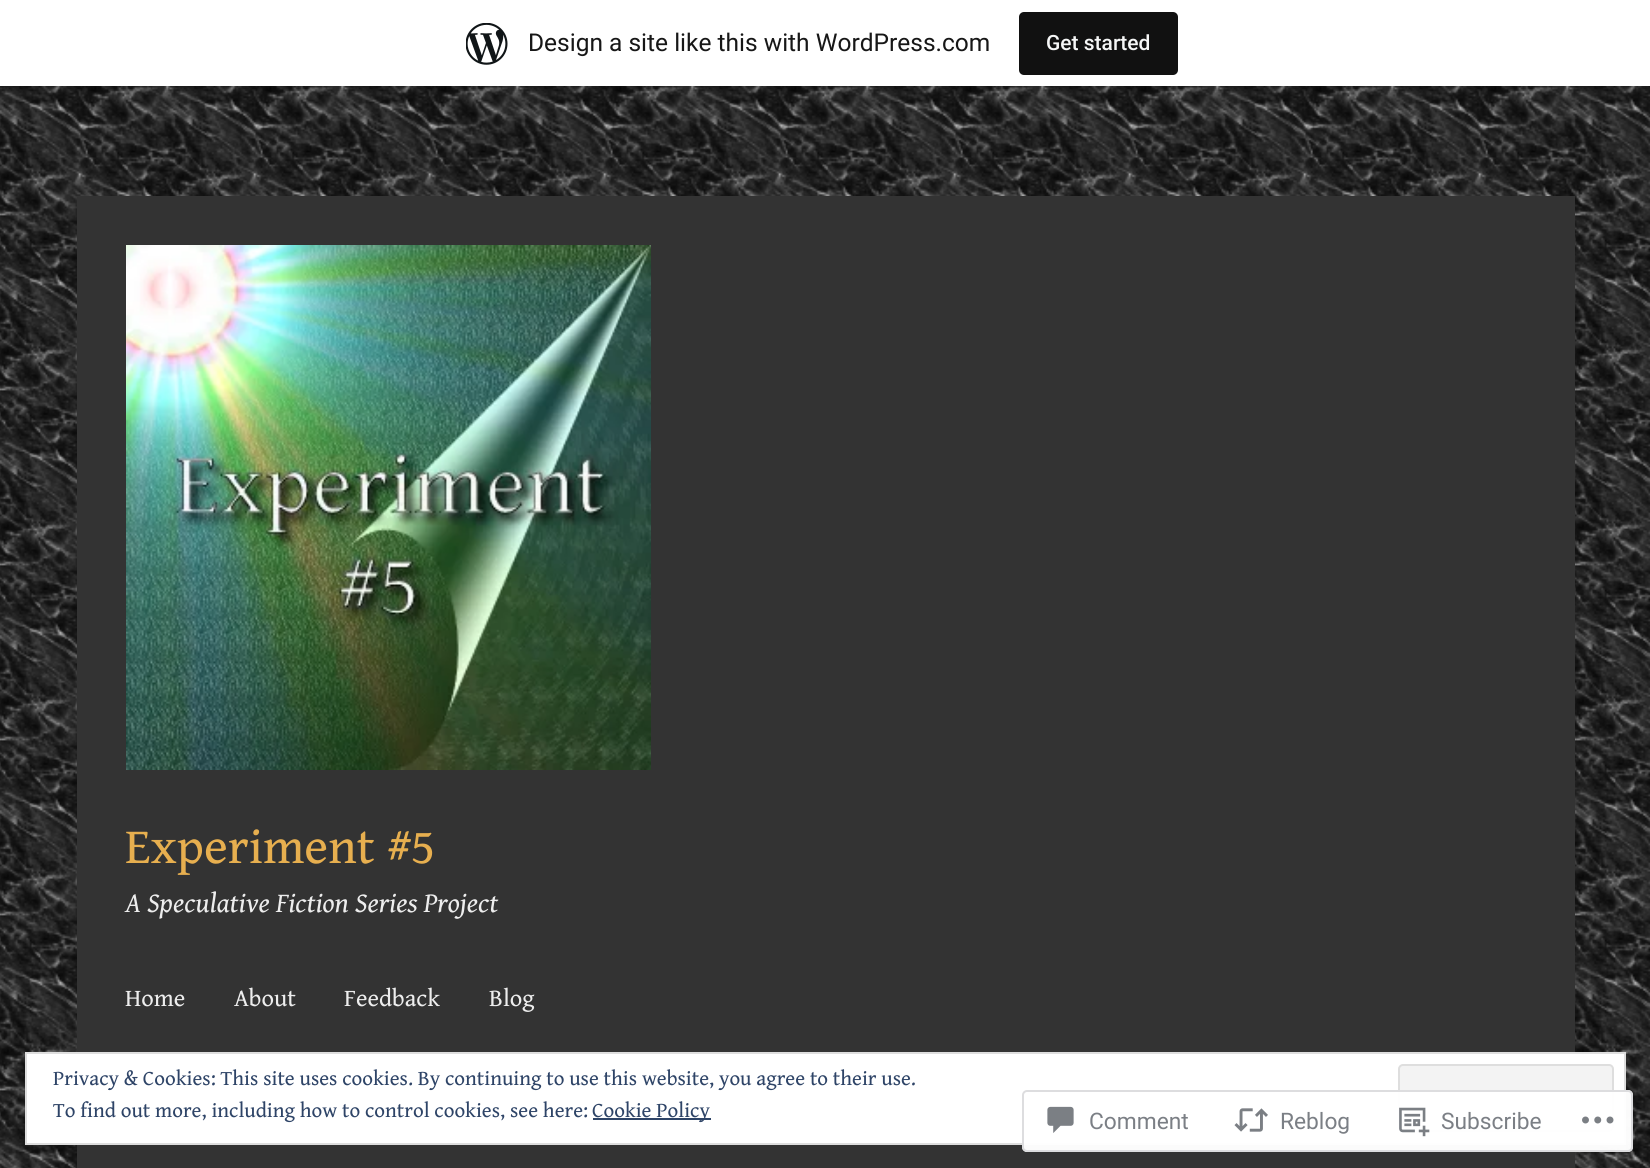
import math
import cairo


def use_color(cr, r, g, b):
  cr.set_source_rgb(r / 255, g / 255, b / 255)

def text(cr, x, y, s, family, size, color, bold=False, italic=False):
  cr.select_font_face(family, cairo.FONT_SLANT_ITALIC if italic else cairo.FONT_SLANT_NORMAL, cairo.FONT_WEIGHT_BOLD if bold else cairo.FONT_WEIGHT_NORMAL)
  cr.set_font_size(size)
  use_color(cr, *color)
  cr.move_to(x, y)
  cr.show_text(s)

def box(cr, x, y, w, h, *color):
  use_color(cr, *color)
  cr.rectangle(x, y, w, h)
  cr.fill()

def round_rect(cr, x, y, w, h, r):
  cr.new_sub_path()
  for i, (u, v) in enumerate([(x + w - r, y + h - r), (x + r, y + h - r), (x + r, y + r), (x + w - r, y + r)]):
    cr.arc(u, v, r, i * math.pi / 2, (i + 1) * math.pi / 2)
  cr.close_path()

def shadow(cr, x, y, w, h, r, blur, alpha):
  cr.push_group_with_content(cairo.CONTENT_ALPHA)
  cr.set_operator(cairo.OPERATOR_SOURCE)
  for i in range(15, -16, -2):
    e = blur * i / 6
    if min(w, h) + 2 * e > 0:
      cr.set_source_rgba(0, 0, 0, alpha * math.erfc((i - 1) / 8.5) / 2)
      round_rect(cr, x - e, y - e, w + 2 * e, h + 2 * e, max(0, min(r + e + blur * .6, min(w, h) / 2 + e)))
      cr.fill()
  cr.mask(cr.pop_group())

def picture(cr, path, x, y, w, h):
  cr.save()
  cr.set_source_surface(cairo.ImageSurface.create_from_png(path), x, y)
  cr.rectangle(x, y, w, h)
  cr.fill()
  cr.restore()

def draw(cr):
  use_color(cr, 255, 255, 255)
  cr.paint()
  picture(cr, "img_01.png", 0, 86, 1650, 1082)
  use_color(cr, 0, 0, 0)
  shadow(cr, 0, 2, 1650, 86, 0, 2, 0.05)
  cr.set_source_rgba(0, 0, 0, 0.08)
  cr.new_path()
  cr.move_to(2, 86)
  cr.line_to(2, 91)
  cr.line_to(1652, 91)
  cr.line_to(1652, 5)
  cr.line_to(1650, 5)
  cr.line_to(1650, 86)
  cr.close_path()
  cr.fill()
  box(cr, 0, 0, 1650, 86, 255, 255, 255)
  picture(cr, "img_02.png", 466, 23, 42, 42)
  use_color(cr, 17, 17, 17)
  round_rect(cr, 1019, 12, 159, 63, 5)
  cr.fill()
  box(cr, 77, 196, 1498, 972, 51, 51, 51)
  picture(cr, "img_03.png", 126, 245, 525, 525)
  use_color(cr, 255, 255, 255)
  cr.rectangle(26, 1053, 1599, 91)
  cr.fill_preserve()
  use_color(cr, 222, 222, 222)
  cr.stroke()
  use_color(cr, 243, 243, 243)
  round_rect(cr, 1399, 1065, 214, 66, 4)
  cr.fill_preserve()
  use_color(cr, 222, 222, 222)
  cr.stroke()
  box(cr, 593, 1118, 118, 2, 46, 68, 103)
  cr.set_source_rgba(1, 1, 1, 0.98)
  round_rect(cr, 1022, 1090, 611, 62, 5)
  cr.fill()
  round_rect(cr, 1023, 1091, 609, 60, 4)
  cr.set_source_rgba(0.863, 0.863, 0.871, 0.98)
  cr.stroke()
  picture(cr, "img_04.png", 1047, 1106, 27, 27)
  picture(cr, "img_05.png", 1234, 1108, 34, 24)
  picture(cr, "img_06.png", 1399, 1107, 31, 30)
  picture(cr, "img_07.png", 1582, 1116, 32, 8)
  text(cr, 528, 51, "Design a site like this with WordPress.com", "Roboto", 24.5, (23, 23, 23))
  text(cr, 1046, 50, "Get started", "Roboto Medium", 21, (246, 247, 247))
  text(cr, 125, 863, "Experiment #5", "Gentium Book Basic", 50.75, (231, 175, 79))
  text(cr, 125, 912, "A Speculative Fiction Series Project", "Gentium Book Basic", 28, (237, 237, 237), italic=True)
  text(cr, 125, 1006, "Home", "Gentium Book Basic", 24.5, (237, 237, 237))
  text(cr, 234, 1006, "About", "Gentium Book Basic", 24.5, (237, 237, 237))
  text(cr, 344, 1006, "Feedback", "Gentium Book Basic", 24.5, (237, 237, 237))
  text(cr, 489, 1006, "Blog", "Gentium Book Basic", 24.5, (237, 237, 237))
  text(cr, 53, 1085, "Privacy & Cookies: This site uses cookies. By continuing to use this website, you agree to their use.", "Gentium Book Basic", 21, (46, 68, 103))
  text(cr, 53, 1117, "To find out more, including how to control cookies, see here:", "Gentium Book Basic", 21, (46, 68, 103))
  text(cr, 592, 1117, "Cookie Policy", "Gentium Book Basic", 21, (46, 68, 103))
  text(cr, 1089, 1129, "Comment", "Roboto", 22.75, (123, 127, 133))
  text(cr, 1280, 1129, "Reblog", "Roboto", 22.75, (123, 127, 133))
  text(cr, 1441, 1129, "Subscribe", "Roboto", 22.75, (123, 127, 133))


surface = cairo.ImageSurface(cairo.FORMAT_RGB24, 1650, 1168)
cr = cairo.Context(surface)
options = cairo.FontOptions()
options.set_hint_metrics(cairo.HINT_METRICS_OFF)
options.set_hint_style(cairo.HINT_STYLE_NONE)
cr.set_font_options(options)
cr.set_miter_limit(4)
draw(cr)
surface.write_to_png("out.png")
